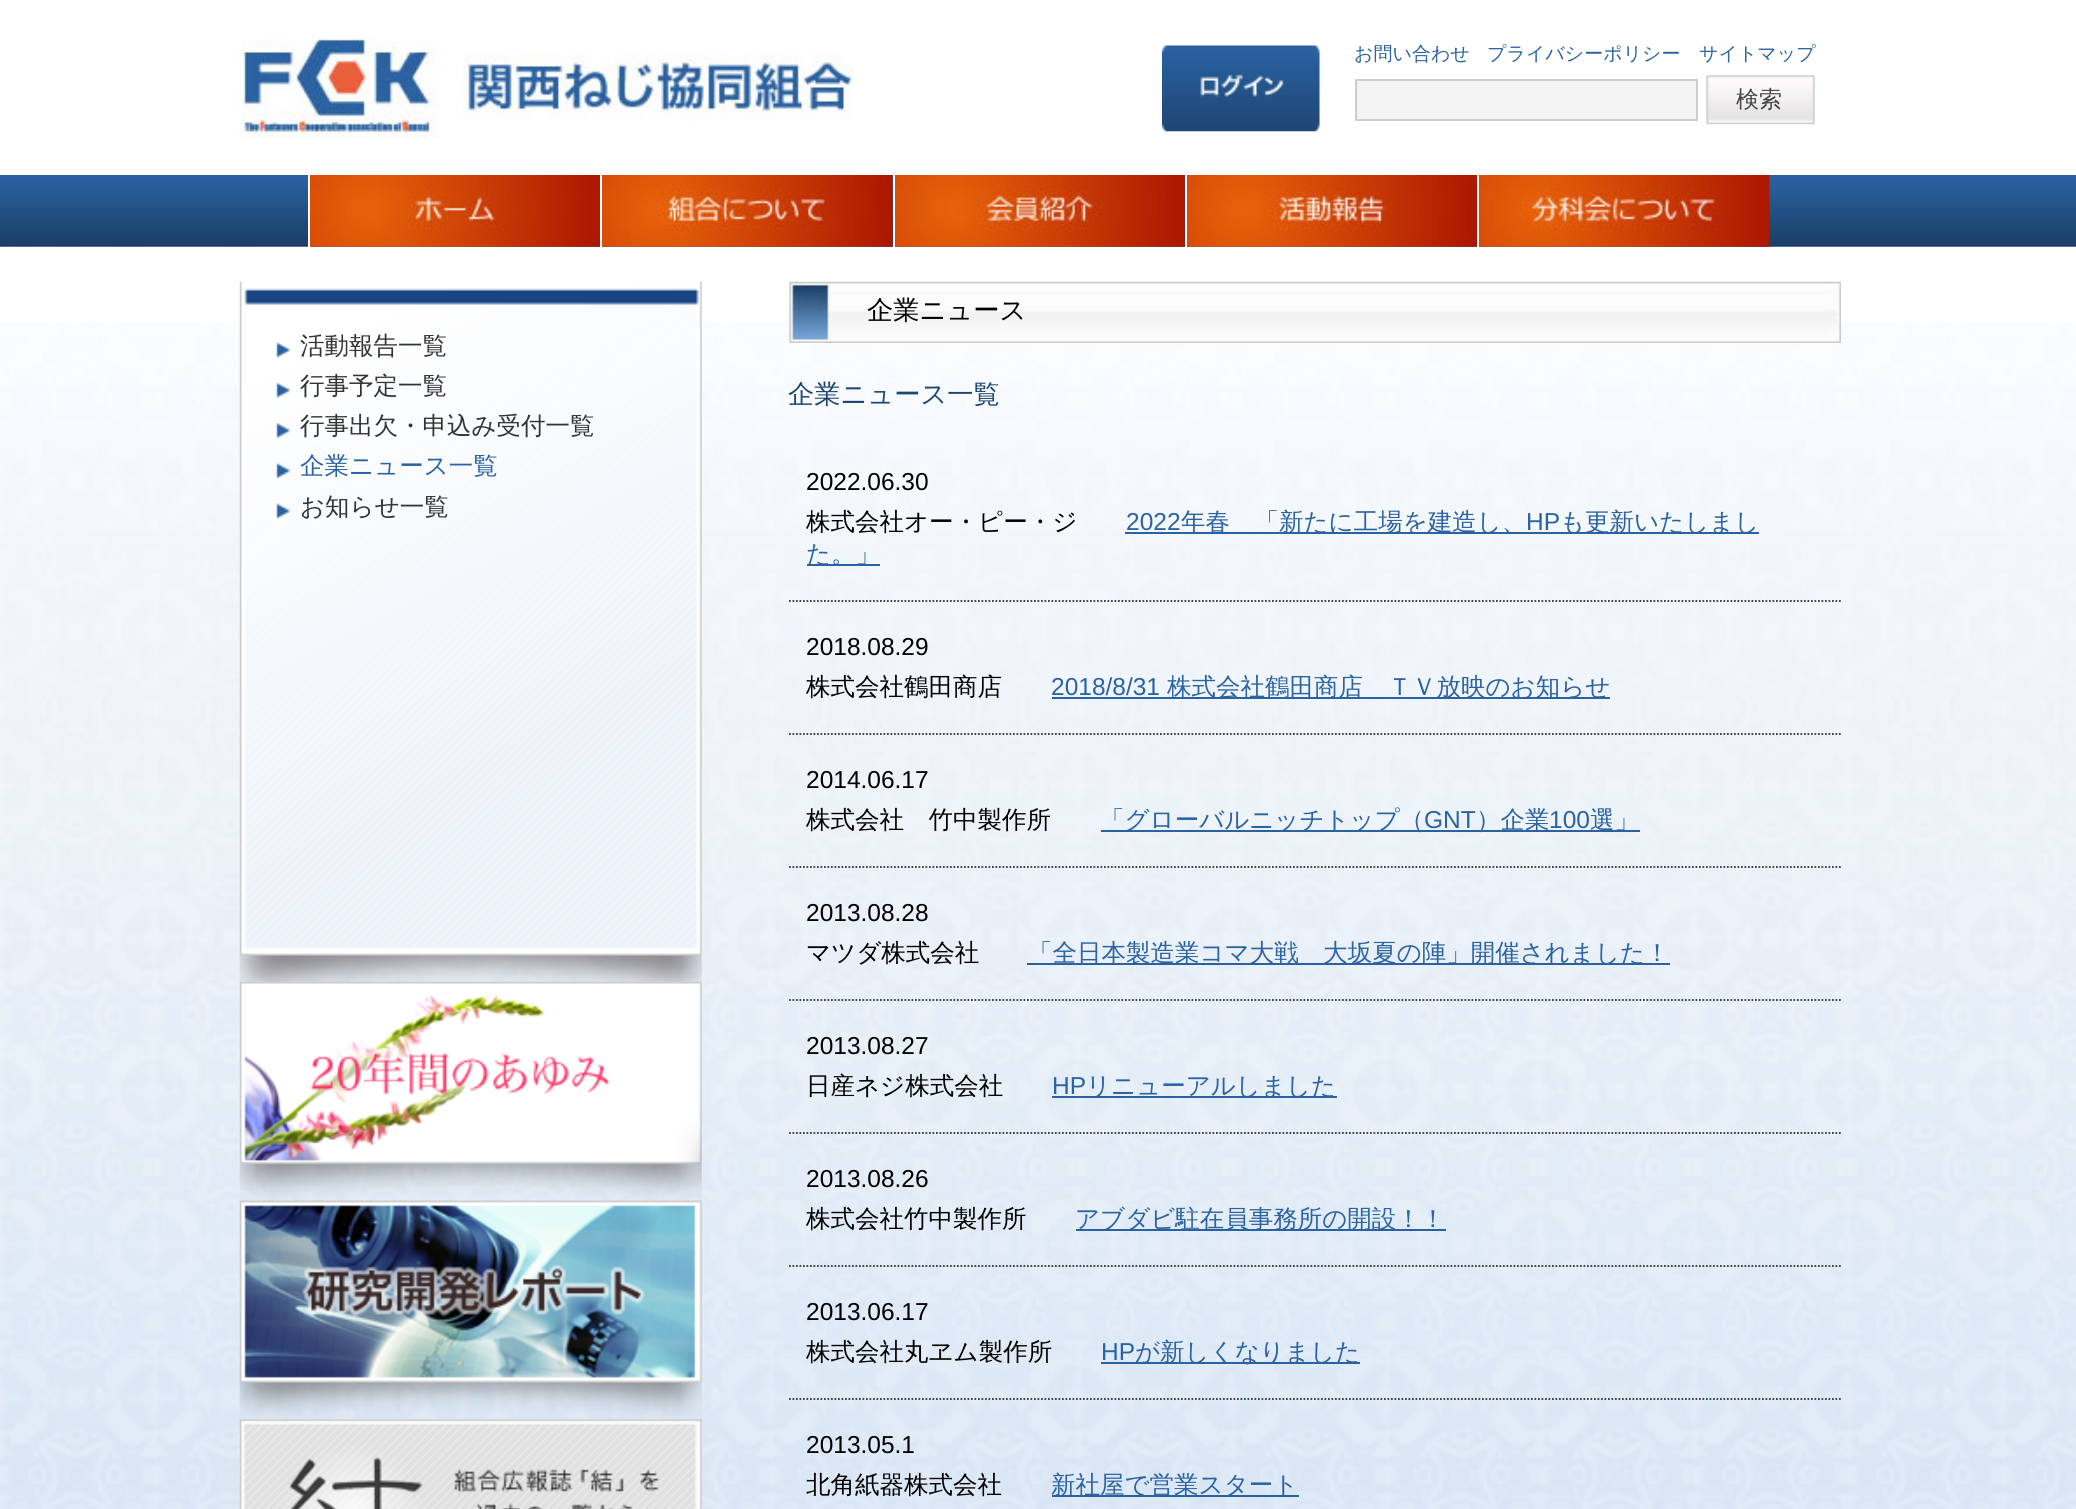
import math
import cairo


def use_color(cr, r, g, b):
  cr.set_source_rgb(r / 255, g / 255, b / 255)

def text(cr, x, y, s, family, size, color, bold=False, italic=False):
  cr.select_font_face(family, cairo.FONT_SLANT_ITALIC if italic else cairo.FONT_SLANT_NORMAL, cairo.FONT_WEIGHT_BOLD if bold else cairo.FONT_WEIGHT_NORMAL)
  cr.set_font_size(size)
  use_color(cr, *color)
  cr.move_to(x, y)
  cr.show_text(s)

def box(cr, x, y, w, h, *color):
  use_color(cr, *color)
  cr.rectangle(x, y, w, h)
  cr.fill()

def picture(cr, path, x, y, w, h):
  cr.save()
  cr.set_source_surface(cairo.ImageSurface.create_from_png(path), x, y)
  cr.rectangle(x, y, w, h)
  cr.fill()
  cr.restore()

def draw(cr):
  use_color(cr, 255, 255, 255)
  cr.paint()
  picture(cr, "img_01.png", 0, 322, 2076, 1187)
  picture(cr, "img_02.png", 238, 36, 616, 102)
  picture(cr, "img_03.png", 1162, 45, 158, 87)
  use_color(cr, 243, 243, 243)
  cr.rectangle(1356, 80, 341, 40)
  cr.fill_preserve()
  use_color(cr, 204, 204, 204)
  cr.stroke()
  picture(cr, "img_04.png", 1706, 75, 109, 50)
  picture(cr, "img_05.png", 0, 175, 2076, 72)
  picture(cr, "img_06.png", 310, 175, 290, 72)
  box(cr, 308, 175, 2, 72, 255, 255, 255)
  picture(cr, "img_07.png", 602, 175, 291, 72)
  box(cr, 600, 175, 2, 72, 255, 255, 255)
  picture(cr, "img_08.png", 895, 175, 290, 72)
  box(cr, 893, 175, 2, 72, 255, 255, 255)
  picture(cr, "img_09.png", 1187, 175, 290, 72)
  box(cr, 1185, 175, 2, 72, 255, 255, 255)
  picture(cr, "img_10.png", 1479, 175, 291, 72)
  box(cr, 1477, 175, 2, 72, 255, 255, 255)
  picture(cr, "img_17.png", 239, 981, 463, 219)
  picture(cr, "img_11.png", 239, 281, 463, 701)
  picture(cr, "img_12.png", 276, 342, 15, 16)
  picture(cr, "img_13.png", 276, 382, 15, 16)
  picture(cr, "img_14.png", 276, 423, 15, 15)
  picture(cr, "img_15.png", 276, 463, 15, 16)
  picture(cr, "img_16.png", 276, 503, 15, 16)
  picture(cr, "img_18.png", 239, 1200, 463, 219)
  picture(cr, "img_19.png", 239, 1419, 463, 90)
  picture(cr, "img_20.png", 789, 281, 1052, 62)
  cr.new_path()
  cr.move_to(789, 601)
  cr.line_to(1841, 601)
  use_color(cr, 51, 51, 51)
  cr.set_line_width(1.8)
  cr.set_dash([1.75, 1.75])
  cr.stroke()
  box(cr, 1125, 532, 634, 2, 42, 97, 161)
  box(cr, 807, 564, 73, 2, 42, 97, 161)
  cr.new_path()
  cr.move_to(789, 734)
  cr.line_to(1841, 734)
  use_color(cr, 51, 51, 51)
  cr.stroke()
  box(cr, 1052, 697, 558, 2, 42, 97, 161)
  cr.new_path()
  cr.move_to(789, 867)
  cr.line_to(1841, 867)
  use_color(cr, 51, 51, 51)
  cr.stroke()
  box(cr, 1101, 830, 539, 2, 42, 97, 161)
  cr.new_path()
  cr.move_to(789, 1000)
  cr.line_to(1841, 1000)
  use_color(cr, 51, 51, 51)
  cr.stroke()
  box(cr, 1027, 963, 643, 2, 42, 97, 161)
  cr.new_path()
  cr.move_to(789, 1133)
  cr.line_to(1841, 1133)
  use_color(cr, 51, 51, 51)
  cr.stroke()
  box(cr, 1052, 1096, 285, 2, 42, 97, 161)
  cr.new_path()
  cr.move_to(789, 1266)
  cr.line_to(1841, 1266)
  use_color(cr, 51, 51, 51)
  cr.stroke()
  box(cr, 1076, 1229, 370, 2, 42, 97, 161)
  cr.new_path()
  cr.move_to(789, 1399)
  cr.line_to(1841, 1399)
  use_color(cr, 51, 51, 51)
  cr.stroke()
  box(cr, 1101, 1362, 259, 2, 42, 97, 161)
  box(cr, 1052, 1495, 247, 2, 42, 97, 161)
  text(cr, 1354, 60, "お問い合わせ", "WenQuanYi Zen Hei Medium", 19, (42, 98, 162))
  text(cr, 1487, 60, "プライバシーポリシー", "WenQuanYi Zen Hei Medium", 19, (42, 98, 162))
  text(cr, 1699, 60, "サイトマップ", "WenQuanYi Zen Hei Medium", 19, (42, 98, 162))
  text(cr, 1736, 107, "検索", "WenQuanYi Zen Hei Medium", 23, (68, 68, 68))
  text(cr, 300, 354, "活動報告一覧", "WenQuanYi Zen Hei Medium", 24.5, (51, 51, 51))
  text(cr, 300, 394, "行事予定一覧", "WenQuanYi Zen Hei Medium", 24.5, (51, 51, 51))
  text(cr, 300, 434, "行事出欠・申込み受付一覧", "WenQuanYi Zen Hei Medium", 24.5, (51, 51, 51))
  text(cr, 300, 474, "企業ニュース一覧", "WenQuanYi Zen Hei Medium", 24.5, (42, 98, 162))
  text(cr, 300, 515, "お知らせ一覧", "WenQuanYi Zen Hei Medium", 24.5, (51, 51, 51))
  text(cr, 867, 319, "企業ニュース", "WenQuanYi Zen Hei Medium", 26.25, (0, 0, 0))
  text(cr, 788, 403, "企業ニュース一覧", "WenQuanYi Zen Hei Medium", 26.25, (30, 70, 114))
  text(cr, 806, 490, "2022.06.30", "Liberation Sans", 24.5, (0, 0, 0))
  text(cr, 806, 530, "株式会社オー・ピー・ジ", "WenQuanYi Zen Hei Medium", 24.5, (0, 0, 0))
  text(cr, 1126, 530, "2022", "Liberation Sans", 24.5, (42, 98, 162))
  text(cr, 1181, 530, "年春　「新たに工場を建造し、", "WenQuanYi Zen Hei Medium", 24.5, (42, 98, 162))
  text(cr, 1526, 530, "HP", "Liberation Sans", 24.5, (42, 98, 162))
  text(cr, 1560, 530, "も更新いたしまし", "WenQuanYi Zen Hei Medium", 24.5, (42, 98, 162))
  text(cr, 806, 562, "た。」", "WenQuanYi Zen Hei Medium", 24.5, (42, 98, 162))
  text(cr, 806, 655, "2018.08.29", "Liberation Sans", 24.5, (0, 0, 0))
  text(cr, 806, 695, "株式会社鶴田商店", "WenQuanYi Zen Hei Medium", 24.5, (0, 0, 0))
  text(cr, 1051, 695, "2018/8/31", "Liberation Sans", 24.5, (42, 98, 162))
  text(cr, 1167, 695, "株式会社鶴田商店　ＴＶ放映のお知らせ", "WenQuanYi Zen Hei Medium", 24.5, (42, 98, 162))
  text(cr, 806, 788, "2014.06.17", "Liberation Sans", 24.5, (0, 0, 0))
  text(cr, 806, 828, "株式会社　竹中製作所", "WenQuanYi Zen Hei Medium", 24.5, (0, 0, 0))
  text(cr, 1100, 828, "「グローバルニッチトップ（", "WenQuanYi Zen Hei Medium", 24.5, (42, 98, 162))
  text(cr, 1424, 828, "GNT", "Liberation Sans", 24.5, (42, 98, 162))
  text(cr, 1476, 828, "）企業", "WenQuanYi Zen Hei Medium", 24.5, (42, 98, 162))
  text(cr, 1549, 828, "100", "Liberation Sans", 24.5, (42, 98, 162))
  text(cr, 1590, 828, "選」", "WenQuanYi Zen Hei Medium", 24.5, (42, 98, 162))
  text(cr, 806, 921, "2013.08.28", "Liberation Sans", 24.5, (0, 0, 0))
  text(cr, 806, 961, "マツダ株式会社", "WenQuanYi Zen Hei Medium", 24.5, (0, 0, 0))
  text(cr, 1028, 961, "「全日本製造業コマ大戦　大坂夏の陣」開催されました！", "WenQuanYi Zen Hei Medium", 24.5, (42, 98, 162))
  text(cr, 806, 1054, "2013.08.27", "Liberation Sans", 24.5, (0, 0, 0))
  text(cr, 806, 1094, "日産ネジ株式会社", "WenQuanYi Zen Hei Medium", 24.5, (0, 0, 0))
  text(cr, 1052, 1094, "HP", "Liberation Sans", 24.5, (42, 98, 162))
  text(cr, 1086, 1094, "リニューアルしました", "WenQuanYi Zen Hei Medium", 24.5, (42, 98, 162))
  text(cr, 806, 1187, "2013.08.26", "Liberation Sans", 24.5, (0, 0, 0))
  text(cr, 806, 1227, "株式会社竹中製作所", "WenQuanYi Zen Hei Medium", 24.5, (0, 0, 0))
  text(cr, 1075, 1227, "アブダビ駐在員事務所の開設！！", "WenQuanYi Zen Hei Medium", 24.5, (42, 98, 162))
  text(cr, 806, 1320, "2013.06.17", "Liberation Sans", 24.5, (0, 0, 0))
  text(cr, 806, 1360, "株式会社丸ヱム製作所", "WenQuanYi Zen Hei Medium", 24.5, (0, 0, 0))
  text(cr, 1101, 1360, "HP", "Liberation Sans", 24.5, (42, 98, 162))
  text(cr, 1135, 1360, "が新しくなりました", "WenQuanYi Zen Hei Medium", 24.5, (42, 98, 162))
  text(cr, 806, 1453, "2013.05.1", "Liberation Sans", 24.5, (0, 0, 0))
  text(cr, 806, 1493, "北角紙器株式会社", "WenQuanYi Zen Hei Medium", 24.5, (0, 0, 0))
  text(cr, 1051, 1493, "新社屋で営業スタート", "WenQuanYi Zen Hei Medium", 24.5, (42, 98, 162))


surface = cairo.ImageSurface(cairo.FORMAT_RGB24, 2076, 1509)
cr = cairo.Context(surface)
options = cairo.FontOptions()
options.set_hint_metrics(cairo.HINT_METRICS_OFF)
options.set_hint_style(cairo.HINT_STYLE_NONE)
cr.set_font_options(options)
cr.set_miter_limit(4)
draw(cr)
surface.write_to_png("out.png")
